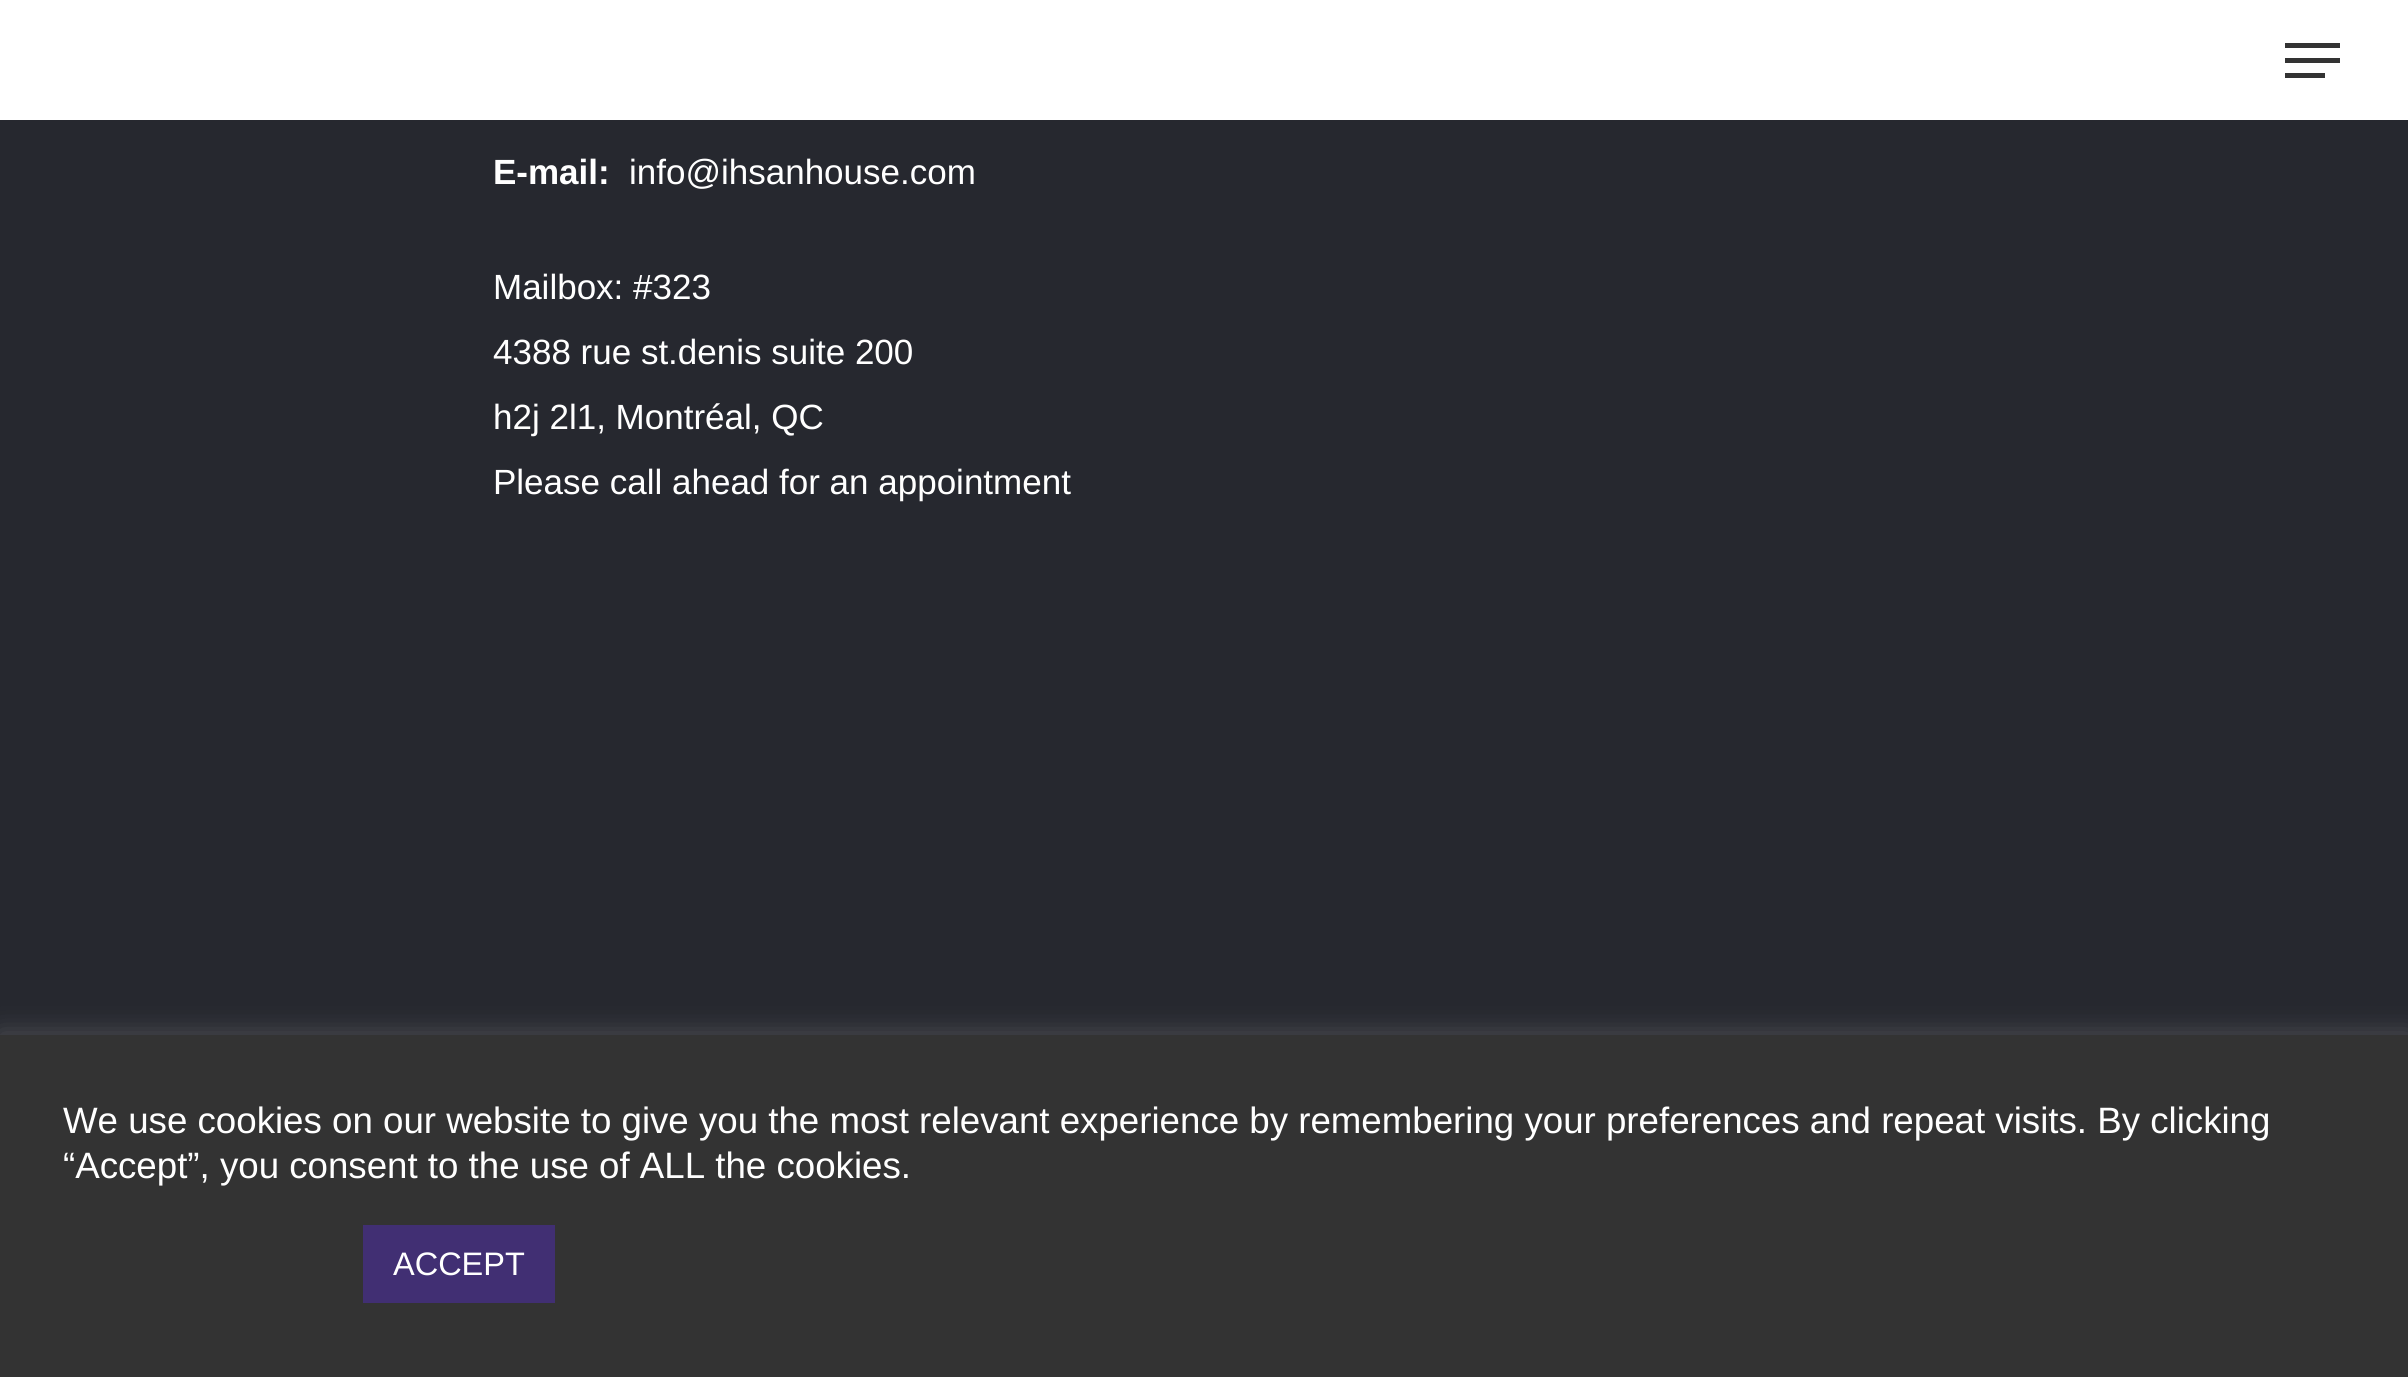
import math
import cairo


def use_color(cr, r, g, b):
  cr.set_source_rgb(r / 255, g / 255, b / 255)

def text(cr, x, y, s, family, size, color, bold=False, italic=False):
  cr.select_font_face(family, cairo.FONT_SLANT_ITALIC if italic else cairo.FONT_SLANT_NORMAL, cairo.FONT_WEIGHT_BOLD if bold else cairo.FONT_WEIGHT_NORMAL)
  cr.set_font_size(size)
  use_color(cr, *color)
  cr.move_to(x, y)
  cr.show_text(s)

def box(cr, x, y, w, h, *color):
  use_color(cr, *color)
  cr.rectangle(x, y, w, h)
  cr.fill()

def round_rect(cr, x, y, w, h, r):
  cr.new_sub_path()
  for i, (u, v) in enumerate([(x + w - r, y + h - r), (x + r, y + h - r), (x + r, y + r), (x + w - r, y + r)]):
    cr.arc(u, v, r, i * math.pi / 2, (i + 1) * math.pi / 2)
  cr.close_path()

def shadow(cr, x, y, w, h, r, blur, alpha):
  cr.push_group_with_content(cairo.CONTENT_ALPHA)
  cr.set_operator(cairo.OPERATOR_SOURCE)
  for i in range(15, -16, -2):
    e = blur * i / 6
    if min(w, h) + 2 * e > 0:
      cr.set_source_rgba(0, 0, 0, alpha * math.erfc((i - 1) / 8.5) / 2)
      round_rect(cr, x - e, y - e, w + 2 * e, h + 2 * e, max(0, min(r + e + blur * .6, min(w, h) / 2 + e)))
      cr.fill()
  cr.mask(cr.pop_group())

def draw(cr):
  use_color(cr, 38, 40, 47)
  cr.paint()
  box(cr, 0, 0, 2408, 120, 255, 255, 255)
  box(cr, 2285, 43, 55, 5, 51, 51, 51)
  box(cr, 2285, 73, 40, 5, 51, 51, 51)
  box(cr, 2285, 58, 55, 5, 51, 51, 51)
  use_color(cr, 172, 171, 171)
  shadow(cr, 0, 1033, 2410, 342, 0, 12.5, 0.3)
  box(cr, 0, 1035, 2408, 342, 51, 51, 51)
  box(cr, 363, 1225, 192, 78, 65, 47, 115)
  text(cr, 493, 184, "E-mail:", "Arimo", 35, (255, 255, 255), bold=True)
  text(cr, 629, 184, "info@ihsanhouse.com", "Arimo", 35, (255, 255, 255))
  text(cr, 493, 299, "Mailbox: #323", "Arimo", 35, (255, 255, 255))
  text(cr, 493, 364, "4388 rue st.denis suite 200", "Arimo", 35, (255, 255, 255))
  text(cr, 493, 429, "h2j 2l1, Montréal, QC", "Arimo", 35, (255, 255, 255))
  text(cr, 493, 494, "Please call ahead for an appointment", "Arimo", 35, (255, 255, 255))
  text(cr, 63, 1133, "We use cookies on our website to give you the most relevant experience by remembering your preferences and repeat visits. By clicking", "Arimo", 36.67, (255, 255, 255))
  text(cr, 63, 1178, "“Accept”, you consent to the use of ALL the cookies.", "Arimo", 36.67, (255, 255, 255))
  text(cr, 393, 1275, "ACCEPT", "Arimo", 32.5, (255, 255, 255))


surface = cairo.ImageSurface(cairo.FORMAT_RGB24, 2408, 1377)
cr = cairo.Context(surface)
options = cairo.FontOptions()
options.set_hint_metrics(cairo.HINT_METRICS_OFF)
options.set_hint_style(cairo.HINT_STYLE_NONE)
cr.set_font_options(options)
cr.set_miter_limit(4)
draw(cr)
surface.write_to_png("out.png")
